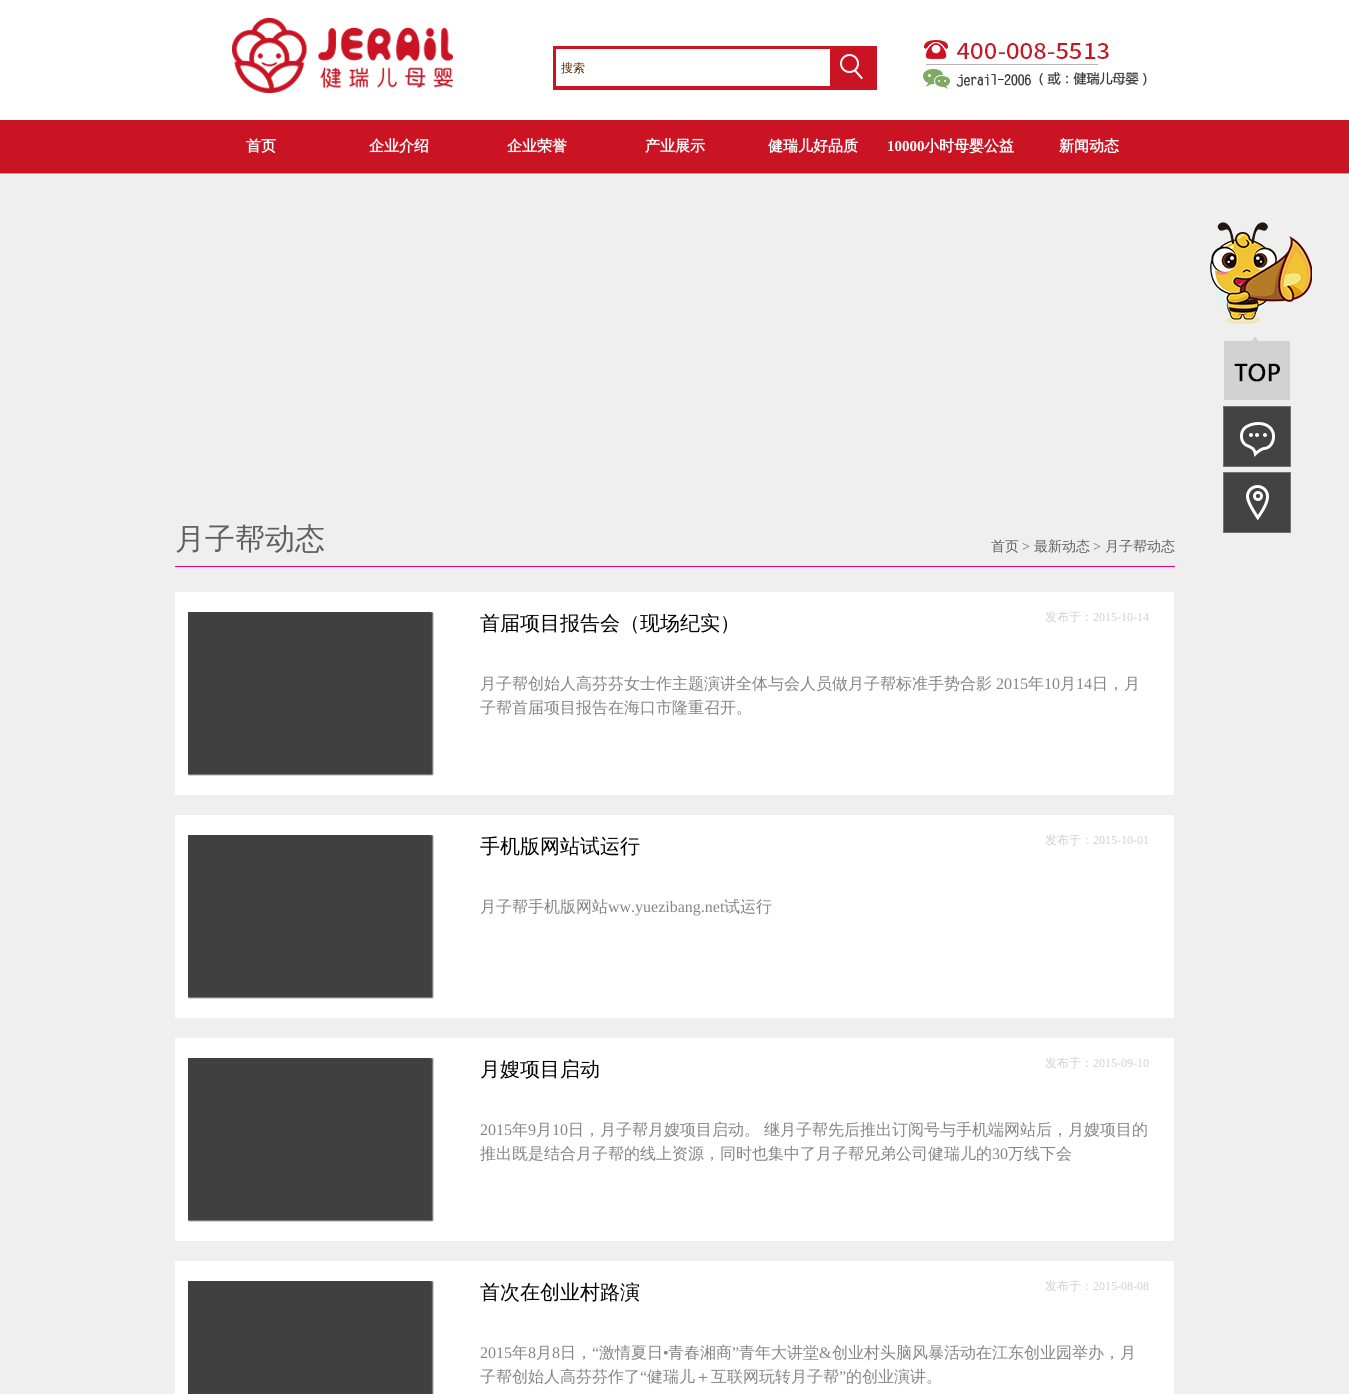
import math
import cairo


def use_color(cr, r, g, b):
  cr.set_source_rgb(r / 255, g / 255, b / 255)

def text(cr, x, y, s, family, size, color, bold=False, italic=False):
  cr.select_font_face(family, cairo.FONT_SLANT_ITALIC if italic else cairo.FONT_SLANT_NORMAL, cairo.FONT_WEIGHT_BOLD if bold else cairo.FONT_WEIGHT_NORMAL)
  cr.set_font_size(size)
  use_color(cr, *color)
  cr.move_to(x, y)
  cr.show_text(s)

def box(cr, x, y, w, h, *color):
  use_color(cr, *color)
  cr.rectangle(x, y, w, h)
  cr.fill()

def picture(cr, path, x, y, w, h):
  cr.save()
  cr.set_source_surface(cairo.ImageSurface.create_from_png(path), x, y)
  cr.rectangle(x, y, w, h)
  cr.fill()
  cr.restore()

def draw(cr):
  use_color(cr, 255, 255, 255)
  cr.paint()
  picture(cr, "img_01.png", 232, 18, 221, 75)
  picture(cr, "img_02.png", 553, 46, 324, 44)
  picture(cr, "img_03.png", 921, 40, 226, 49)
  box(cr, 0, 120, 1349, 53, 202, 20, 36)
  box(cr, 0, 173, 1349, 1, 179, 156, 174)
  box(cr, 0, 175, 1349, 1219, 239, 239, 239)
  picture(cr, "img_04.png", 1210, 222, 102, 102)
  picture(cr, "img_05.png", 1224, 337, 66, 63)
  picture(cr, "img_06.png", 1223, 406, 68, 61)
  picture(cr, "img_07.png", 1223, 472, 68, 61)
  box(cr, 175, 566, 1000, 1, 228, 0, 127)
  box(cr, 175, 592, 999, 203, 255, 255, 255)
  picture(cr, "img_08.png", 188, 612, 246, 164)
  box(cr, 175, 815, 999, 203, 255, 255, 255)
  picture(cr, "img_08.png", 188, 835, 246, 164)
  box(cr, 175, 1038, 999, 203, 255, 255, 255)
  picture(cr, "img_08.png", 188, 1058, 246, 164)
  box(cr, 175, 1261, 999, 133, 255, 255, 255)
  picture(cr, "img_09.png", 188, 1281, 246, 113)
  cr.save()
  cr.rectangle(561, 60, 269, 17)
  cr.clip()
  text(cr, 561, 72, "搜索", "WenQuanYi Zen Hei Medium", 12, (91, 37, 0))
  cr.restore()
  text(cr, 246, 151, "首页", "WenQuanYi Zen Hei", 15, (255, 255, 255), bold=True)
  text(cr, 369, 151, "企业介绍", "WenQuanYi Zen Hei", 15, (255, 255, 255), bold=True)
  text(cr, 507, 151, "企业荣誉", "WenQuanYi Zen Hei", 15, (255, 255, 255), bold=True)
  text(cr, 645, 151, "产业展示", "WenQuanYi Zen Hei", 15, (255, 255, 255), bold=True)
  text(cr, 768, 151, "健瑞儿好品质", "WenQuanYi Zen Hei", 15, (255, 255, 255), bold=True)
  text(cr, 887, 151, "10000", "Liberation Serif", 15, (255, 255, 255), bold=True)
  text(cr, 924, 151, "小时母婴公益", "WenQuanYi Zen Hei", 15, (255, 255, 255), bold=True)
  text(cr, 1059, 151, "新闻动态", "WenQuanYi Zen Hei", 15, (255, 255, 255), bold=True)
  text(cr, 175, 549, "月子帮动态", "WenQuanYi Zen Hei Medium", 30, (96, 96, 96))
  text(cr, 991, 551, "首页", "WenQuanYi Zen Hei Medium", 14, (96, 96, 96))
  text(cr, 1022, 551, ">", "Liberation Serif", 14, (96, 96, 96))
  text(cr, 1034, 551, "最新动态", "WenQuanYi Zen Hei Medium", 14, (96, 96, 96))
  text(cr, 1093, 551, ">", "Liberation Serif", 14, (96, 96, 96))
  text(cr, 1105, 551, "月子帮动态", "WenQuanYi Zen Hei Medium", 14, (96, 96, 96))
  text(cr, 480, 630, "首届项目报告会（现场纪实）", "WenQuanYi Zen Hei Medium", 20, (0, 0, 0))
  text(cr, 1045, 621, "发布于：", "WenQuanYi Zen Hei Medium", 12, (207, 207, 207))
  text(cr, 1093, 621, "2015-10-14", "Liberation Serif", 12, (207, 207, 207))
  text(cr, 480, 689, "月子帮创始人高芬芬女士作主题演讲全体与会人员做月子帮标准手势合影", "WenQuanYi Zen Hei Medium", 16, (132, 132, 132))
  text(cr, 996, 689, "2015", "Liberation Serif", 16, (132, 132, 132))
  text(cr, 1028, 689, "年", "WenQuanYi Zen Hei Medium", 16, (132, 132, 132))
  text(cr, 1044, 689, "10", "Liberation Serif", 16, (132, 132, 132))
  text(cr, 1060, 689, "月", "WenQuanYi Zen Hei Medium", 16, (132, 132, 132))
  text(cr, 1076, 689, "14", "Liberation Serif", 16, (132, 132, 132))
  text(cr, 1092, 689, "日，月", "WenQuanYi Zen Hei Medium", 16, (132, 132, 132))
  text(cr, 480, 713, "子帮首届项目报告在海口市隆重召开。", "WenQuanYi Zen Hei Medium", 16, (132, 132, 132))
  text(cr, 480, 853, "手机版网站试运行", "WenQuanYi Zen Hei Medium", 20, (0, 0, 0))
  text(cr, 1045, 844, "发布于：", "WenQuanYi Zen Hei Medium", 12, (207, 207, 207))
  text(cr, 1093, 844, "2015-10-01", "Liberation Serif", 12, (207, 207, 207))
  text(cr, 480, 912, "月子帮手机版网站", "WenQuanYi Zen Hei Medium", 16, (132, 132, 132))
  text(cr, 608, 912, "ww.yuezibang.net", "Liberation Serif", 16, (132, 132, 132))
  text(cr, 724, 912, "试运行", "WenQuanYi Zen Hei Medium", 16, (132, 132, 132))
  text(cr, 480, 1076, "月嫂项目启动", "WenQuanYi Zen Hei Medium", 20, (0, 0, 0))
  text(cr, 1045, 1067, "发布于：", "WenQuanYi Zen Hei Medium", 12, (207, 207, 207))
  text(cr, 1093, 1067, "2015-09-10", "Liberation Serif", 12, (207, 207, 207))
  text(cr, 480, 1135, "2015", "Liberation Serif", 16, (132, 132, 132))
  text(cr, 512, 1135, "年", "WenQuanYi Zen Hei Medium", 16, (132, 132, 132))
  text(cr, 528, 1135, "9", "Liberation Serif", 16, (132, 132, 132))
  text(cr, 536, 1135, "月", "WenQuanYi Zen Hei Medium", 16, (132, 132, 132))
  text(cr, 552, 1135, "10", "Liberation Serif", 16, (132, 132, 132))
  text(cr, 568, 1135, "日，月子帮月嫂项目启动。", "WenQuanYi Zen Hei Medium", 16, (132, 132, 132))
  text(cr, 764, 1135, "继月子帮先后推出订阅号与手机端网站后，月嫂项目的", "WenQuanYi Zen Hei Medium", 16, (132, 132, 132))
  text(cr, 480, 1159, "推出既是结合月子帮的线上资源，同时也集中了月子帮兄弟公司健瑞儿的", "WenQuanYi Zen Hei Medium", 16, (132, 132, 132))
  text(cr, 992, 1159, "30", "Liberation Serif", 16, (132, 132, 132))
  text(cr, 1008, 1159, "万线下会", "WenQuanYi Zen Hei Medium", 16, (132, 132, 132))
  text(cr, 480, 1299, "首次在创业村路演", "WenQuanYi Zen Hei Medium", 20, (0, 0, 0))
  text(cr, 1045, 1290, "发布于：", "WenQuanYi Zen Hei Medium", 12, (207, 207, 207))
  text(cr, 1093, 1290, "2015-08-08", "Liberation Serif", 12, (207, 207, 207))
  text(cr, 480, 1358, "2015", "Liberation Serif", 16, (132, 132, 132))
  text(cr, 512, 1358, "年", "WenQuanYi Zen Hei Medium", 16, (132, 132, 132))
  text(cr, 528, 1358, "8", "Liberation Serif", 16, (132, 132, 132))
  text(cr, 536, 1358, "月", "WenQuanYi Zen Hei Medium", 16, (132, 132, 132))
  text(cr, 552, 1358, "8", "Liberation Serif", 16, (132, 132, 132))
  text(cr, 560, 1358, "日，", "WenQuanYi Zen Hei Medium", 16, (132, 132, 132))
  text(cr, 592, 1358, "“", "Liberation Serif", 16, (132, 132, 132))
  text(cr, 599, 1358, "激情夏日", "WenQuanYi Zen Hei Medium", 16, (132, 132, 132))
  text(cr, 663, 1358, "•", "Liberation Serif", 16, (132, 132, 132))
  text(cr, 668, 1358, "青春湘商", "WenQuanYi Zen Hei Medium", 16, (132, 132, 132))
  text(cr, 732, 1358, "”", "Liberation Serif", 16, (132, 132, 132))
  text(cr, 739, 1358, "青年大讲堂", "WenQuanYi Zen Hei Medium", 16, (132, 132, 132))
  text(cr, 819, 1358, "&", "Liberation Serif", 16, (132, 132, 132))
  text(cr, 832, 1358, "创业村头脑风暴活动在江东创业园举办，月", "WenQuanYi Zen Hei Medium", 16, (132, 132, 132))
  text(cr, 480, 1382, "子帮创始人高芬芬作了", "WenQuanYi Zen Hei Medium", 16, (132, 132, 132))
  text(cr, 640, 1382, "“", "Liberation Serif", 16, (132, 132, 132))
  text(cr, 647, 1382, "健瑞儿＋互联网玩转月子帮", "WenQuanYi Zen Hei Medium", 16, (132, 132, 132))
  text(cr, 839, 1382, "”", "Liberation Serif", 16, (132, 132, 132))
  text(cr, 846, 1382, "的创业演讲。", "WenQuanYi Zen Hei Medium", 16, (132, 132, 132))


surface = cairo.ImageSurface(cairo.FORMAT_RGB24, 1349, 1394)
cr = cairo.Context(surface)
options = cairo.FontOptions()
options.set_hint_metrics(cairo.HINT_METRICS_OFF)
options.set_hint_style(cairo.HINT_STYLE_NONE)
cr.set_font_options(options)
cr.set_miter_limit(4)
draw(cr)
surface.write_to_png("out.png")
